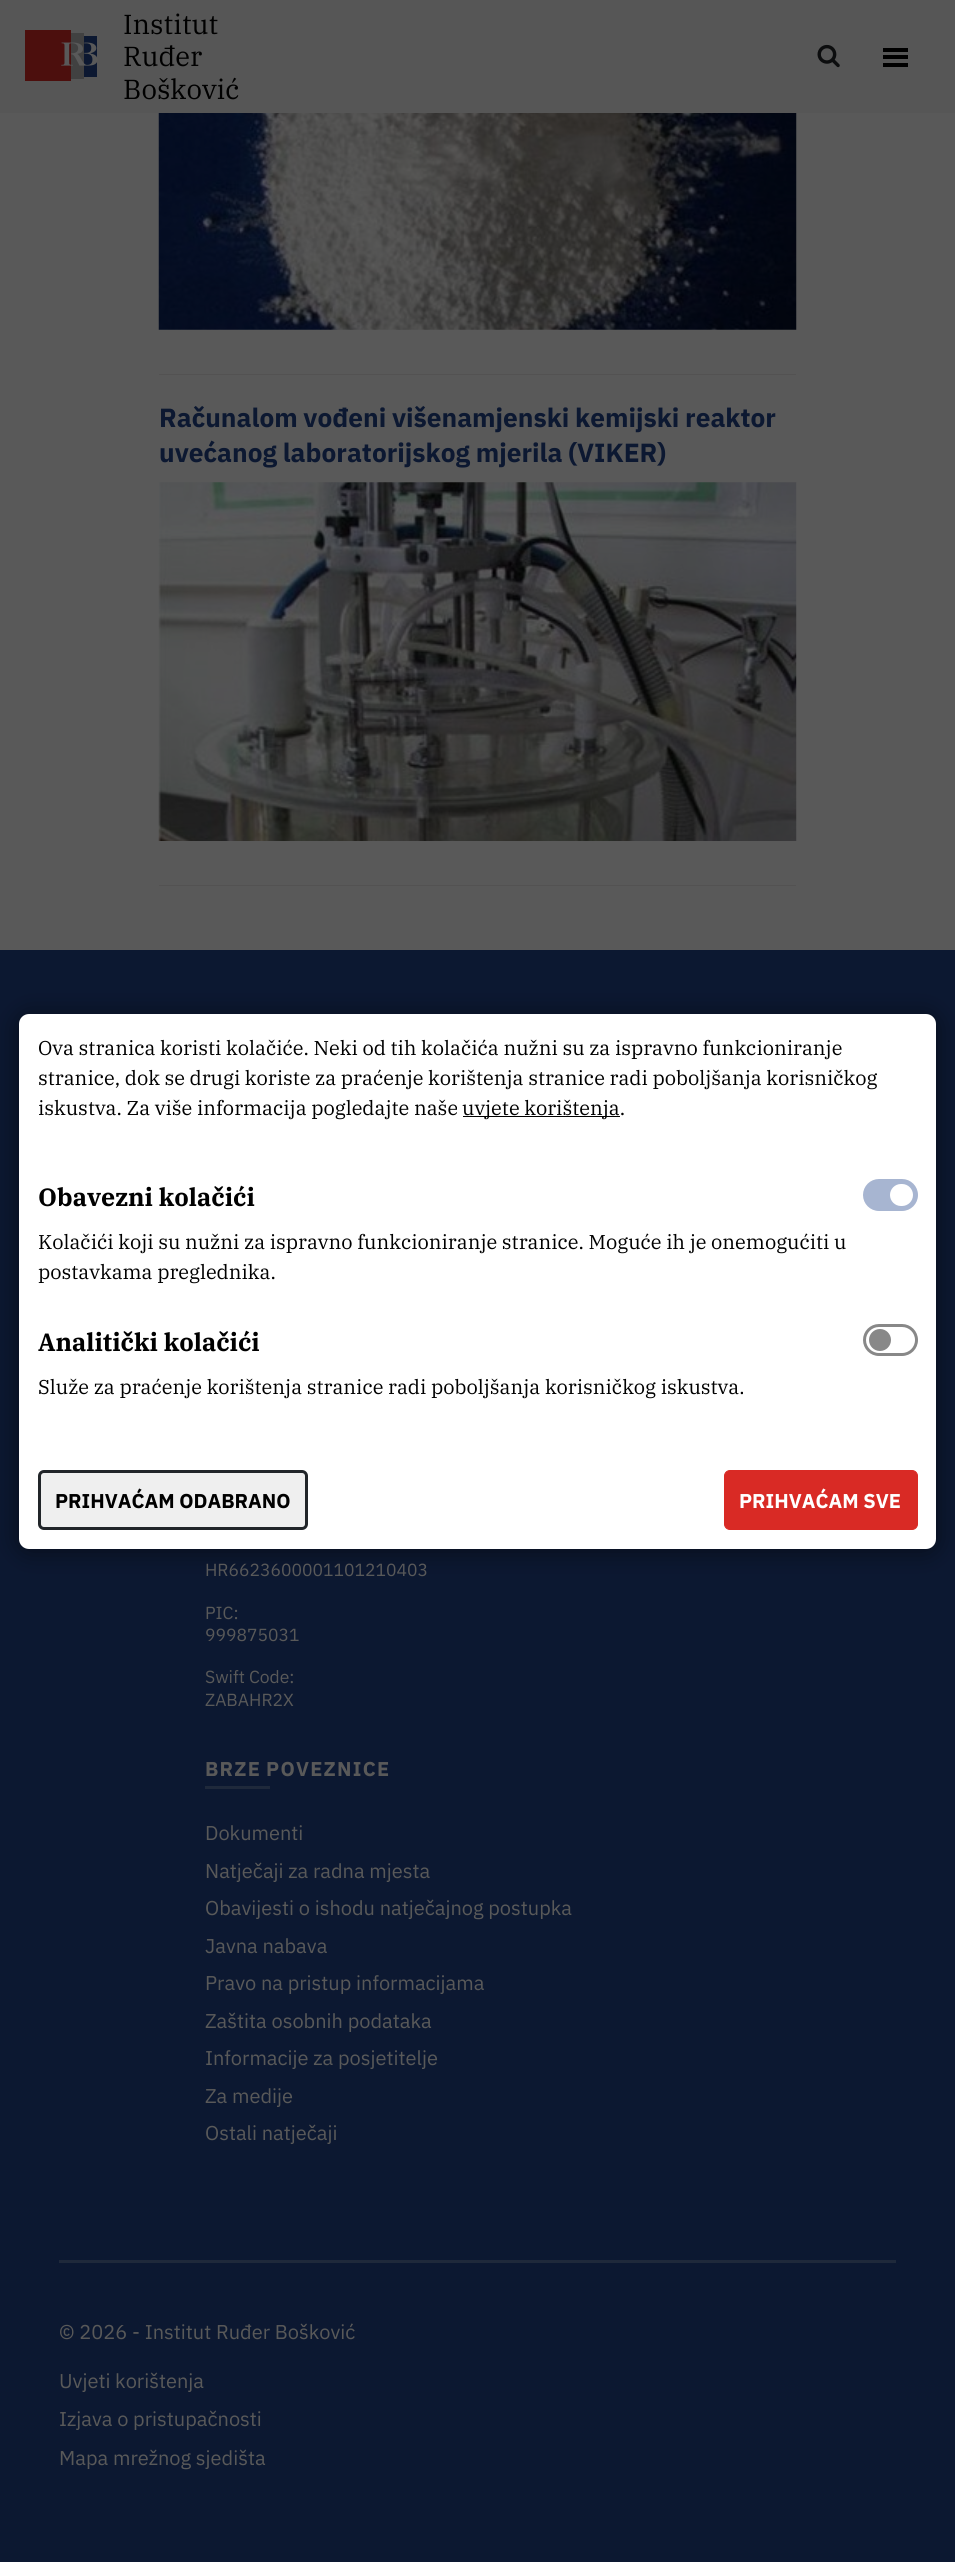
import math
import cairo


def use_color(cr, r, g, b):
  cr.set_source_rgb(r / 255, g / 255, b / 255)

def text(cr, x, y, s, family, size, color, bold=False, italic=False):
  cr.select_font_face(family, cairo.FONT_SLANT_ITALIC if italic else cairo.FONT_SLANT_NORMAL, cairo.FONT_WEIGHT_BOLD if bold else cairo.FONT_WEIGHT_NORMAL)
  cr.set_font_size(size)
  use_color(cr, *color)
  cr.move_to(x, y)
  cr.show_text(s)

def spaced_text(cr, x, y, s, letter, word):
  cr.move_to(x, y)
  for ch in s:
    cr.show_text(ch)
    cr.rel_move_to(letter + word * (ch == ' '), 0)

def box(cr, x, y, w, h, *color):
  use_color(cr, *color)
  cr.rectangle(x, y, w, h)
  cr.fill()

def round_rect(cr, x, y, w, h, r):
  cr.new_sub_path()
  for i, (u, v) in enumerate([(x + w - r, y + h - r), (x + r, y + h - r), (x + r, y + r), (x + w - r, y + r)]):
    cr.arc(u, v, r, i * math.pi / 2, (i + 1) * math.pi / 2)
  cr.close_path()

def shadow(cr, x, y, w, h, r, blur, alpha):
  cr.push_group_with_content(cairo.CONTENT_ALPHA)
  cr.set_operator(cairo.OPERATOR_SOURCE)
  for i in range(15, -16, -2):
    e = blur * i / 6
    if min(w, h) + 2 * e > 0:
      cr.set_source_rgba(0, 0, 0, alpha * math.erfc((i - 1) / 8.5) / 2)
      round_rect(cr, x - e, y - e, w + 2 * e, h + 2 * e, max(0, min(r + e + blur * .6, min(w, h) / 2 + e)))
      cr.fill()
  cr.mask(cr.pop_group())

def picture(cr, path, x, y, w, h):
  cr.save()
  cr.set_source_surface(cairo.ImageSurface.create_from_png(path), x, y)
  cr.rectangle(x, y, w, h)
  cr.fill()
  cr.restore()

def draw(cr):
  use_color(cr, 89, 89, 89)
  cr.paint()
  box(cr, 0, 0, 955, 113, 86, 86, 86)
  picture(cr, "img_01.png", 25, 30, 73, 51)
  picture(cr, "img_02.png", 817, 44, 23, 24)
  box(cr, 883, 55, 25, 4, 0, 0, 0)
  box(cr, 883, 48, 25, 4, 0, 0, 0)
  box(cr, 883, 63, 25, 4, 0, 0, 0)
  box(cr, 159, 374, 637, 1, 83, 82, 82)
  picture(cr, "img_03.png", 158, 113, 639, 217)
  box(cr, 159, 885, 637, 1, 83, 82, 82)
  picture(cr, "img_04.png", 158, 482, 639, 359)
  box(cr, 0, 950, 955, 1612, 12, 24, 49)
  box(cr, 205, 1786, 65, 3, 31, 41, 59)
  box(cr, 59, 2260, 837, 3, 31, 41, 59)
  use_color(cr, 0, 0, 0)
  shadow(cr, 19, 1016, 917, 535, 10, 12.5, 0.5)
  use_color(cr, 255, 255, 255)
  round_rect(cr, 19, 1014, 917, 535, 10)
  cr.fill()
  box(cr, 463, 1116, 157, 1, 0, 0, 0)
  use_color(cr, 167, 181, 209)
  round_rect(cr, 864.5, 1180.5, 52, 29, 14.5)
  cr.fill_preserve()
  cr.set_line_width(3)
  cr.stroke()
  use_color(cr, 255, 255, 255)
  round_rect(cr, 890, 1184, 23, 22, 11)
  cr.fill()
  round_rect(cr, 864.5, 1325.5, 52, 29, 14.5)
  use_color(cr, 136, 136, 136)
  cr.stroke()
  cr.arc(880, 1340, 11, 0, 2 * math.pi)
  cr.fill()
  use_color(cr, 239, 239, 239)
  round_rect(cr, 39.5, 1471.5, 267, 57, 4.5)
  cr.fill_preserve()
  use_color(cr, 33, 37, 41)
  cr.stroke()
  use_color(cr, 217, 42, 37)
  round_rect(cr, 724.5, 1470.5, 193, 59, 5.5)
  cr.fill_preserve()
  cr.set_line_width(1)
  cr.stroke()
  text(cr, 123, 34, "Institut", "IBM Plex Serif", 27.5, (0, 0, 0))
  text(cr, 123, 66, "Ruđer", "IBM Plex Serif", 27.5, (0, 0, 0))
  text(cr, 123, 99, "Bošković", "IBM Plex Serif", 27.5, (0, 0, 0))
  cr.select_font_face("IBM Plex Sans", cairo.FONT_SLANT_NORMAL, cairo.FONT_WEIGHT_BOLD)
  cr.set_font_size(26.25)
  use_color(cr, 12, 24, 49)
  spaced_text(cr, 159, 427, "Računalom vođeni višenamjenski kemijski reaktor", 0, -0.5)
  spaced_text(cr, 159, 462, "uvećanog laboratorijskog mjerila (VIKER)", 0, -0.5)
  text(cr, 205, 1576, "HR6623600001101210403", "IBM Plex Sans", 17.5, (89, 89, 89))
  text(cr, 205, 1619, "PIC:", "IBM Plex Sans", 17.5, (89, 89, 89))
  text(cr, 205, 1641, "999875031", "IBM Plex Sans", 17.5, (89, 89, 89))
  text(cr, 205, 1683, "Swift Code:", "IBM Plex Sans", 17.5, (89, 89, 89))
  text(cr, 205, 1706, "ZABAHR2X", "IBM Plex Sans", 17.5, (89, 89, 89))
  cr.select_font_face("IBM Plex Sans", cairo.FONT_SLANT_NORMAL, cairo.FONT_WEIGHT_BOLD)
  cr.set_font_size(20)
  spaced_text(cr, 205, 1776, "BRZE POVEZNICE", 1.25, -1)
  text(cr, 205, 1840, "Dokumenti", "IBM Plex Sans", 20, (89, 89, 89))
  text(cr, 205, 1878, "Natječaji za radna mjesta", "IBM Plex Sans", 20, (89, 89, 89))
  text(cr, 205, 1915, "Obavijesti o ishodu natječajnog postupka", "IBM Plex Sans", 20, (89, 89, 89))
  text(cr, 205, 1953, "Javna nabava", "IBM Plex Sans", 20, (89, 89, 89))
  text(cr, 205, 1990, "Pravo na pristup informacijama", "IBM Plex Sans", 20, (89, 89, 89))
  text(cr, 205, 2028, "Zaštita osobnih podataka", "IBM Plex Sans", 20, (89, 89, 89))
  text(cr, 205, 2065, "Informacije za posjetitelje", "IBM Plex Sans", 20, (89, 89, 89))
  text(cr, 205, 2103, "Za medije", "IBM Plex Sans", 20, (89, 89, 89))
  text(cr, 205, 2140, "Ostali natječaji", "IBM Plex Sans", 20, (89, 89, 89))
  text(cr, 59, 2339, "© 2026 - Institut Ruđer Bošković", "IBM Plex Sans", 20, (89, 89, 89))
  text(cr, 59, 2388, "Uvjeti korištenja", "IBM Plex Sans", 20, (89, 89, 89))
  text(cr, 59, 2426, "Izjava o pristupačnosti", "IBM Plex Sans", 20, (89, 89, 89))
  text(cr, 59, 2465, "Mapa mrežnog sjedišta", "IBM Plex Sans", 20, (89, 89, 89))
  text(cr, 38, 1055, "Ova stranica koristi kolačiće. Neki od tih kolačića nužni su za ispravno funkcioniranje", "IBM Plex Serif", 20, (0, 0, 0))
  text(cr, 38, 1085, "stranice, dok se drugi koriste za praćenje korištenja stranice radi poboljšanja korisničkog", "IBM Plex Serif", 20, (0, 0, 0))
  text(cr, 38, 1115, "iskustva. Za više informacija pogledajte naše", "IBM Plex Serif", 20, (0, 0, 0))
  text(cr, 462, 1115, "uvjete korištenja.", "IBM Plex Serif", 20, (0, 0, 0))
  text(cr, 38, 1206, "Obavezni kolačići", "IBM Plex Serif", 25, (0, 0, 0), bold=True)
  text(cr, 38, 1249, "Kolačići koji su nužni za ispravno funkcioniranje stranice. Moguće ih je onemogućiti u", "IBM Plex Serif", 20, (0, 0, 0))
  text(cr, 38, 1279, "postavkama preglednika.", "IBM Plex Serif", 20, (0, 0, 0))
  text(cr, 38, 1351, "Analitički kolačići", "IBM Plex Serif", 25, (0, 0, 0), bold=True)
  text(cr, 38, 1394, "Služe za praćenje korištenja stranice radi poboljšanja korisničkog iskustva.", "IBM Plex Serif", 20, (0, 0, 0))
  text(cr, 55, 1508, "PRIHVAĆAM ODABRANO", "IBM Plex Sans", 20, (0, 0, 0), bold=True)
  text(cr, 739, 1508, "PRIHVAĆAM SVE", "IBM Plex Sans", 20, (255, 255, 255), bold=True)


surface = cairo.ImageSurface(cairo.FORMAT_RGB24, 955, 2562)
cr = cairo.Context(surface)
options = cairo.FontOptions()
options.set_hint_metrics(cairo.HINT_METRICS_OFF)
options.set_hint_style(cairo.HINT_STYLE_NONE)
cr.set_font_options(options)
cr.set_miter_limit(4)
draw(cr)
surface.write_to_png("out.png")
